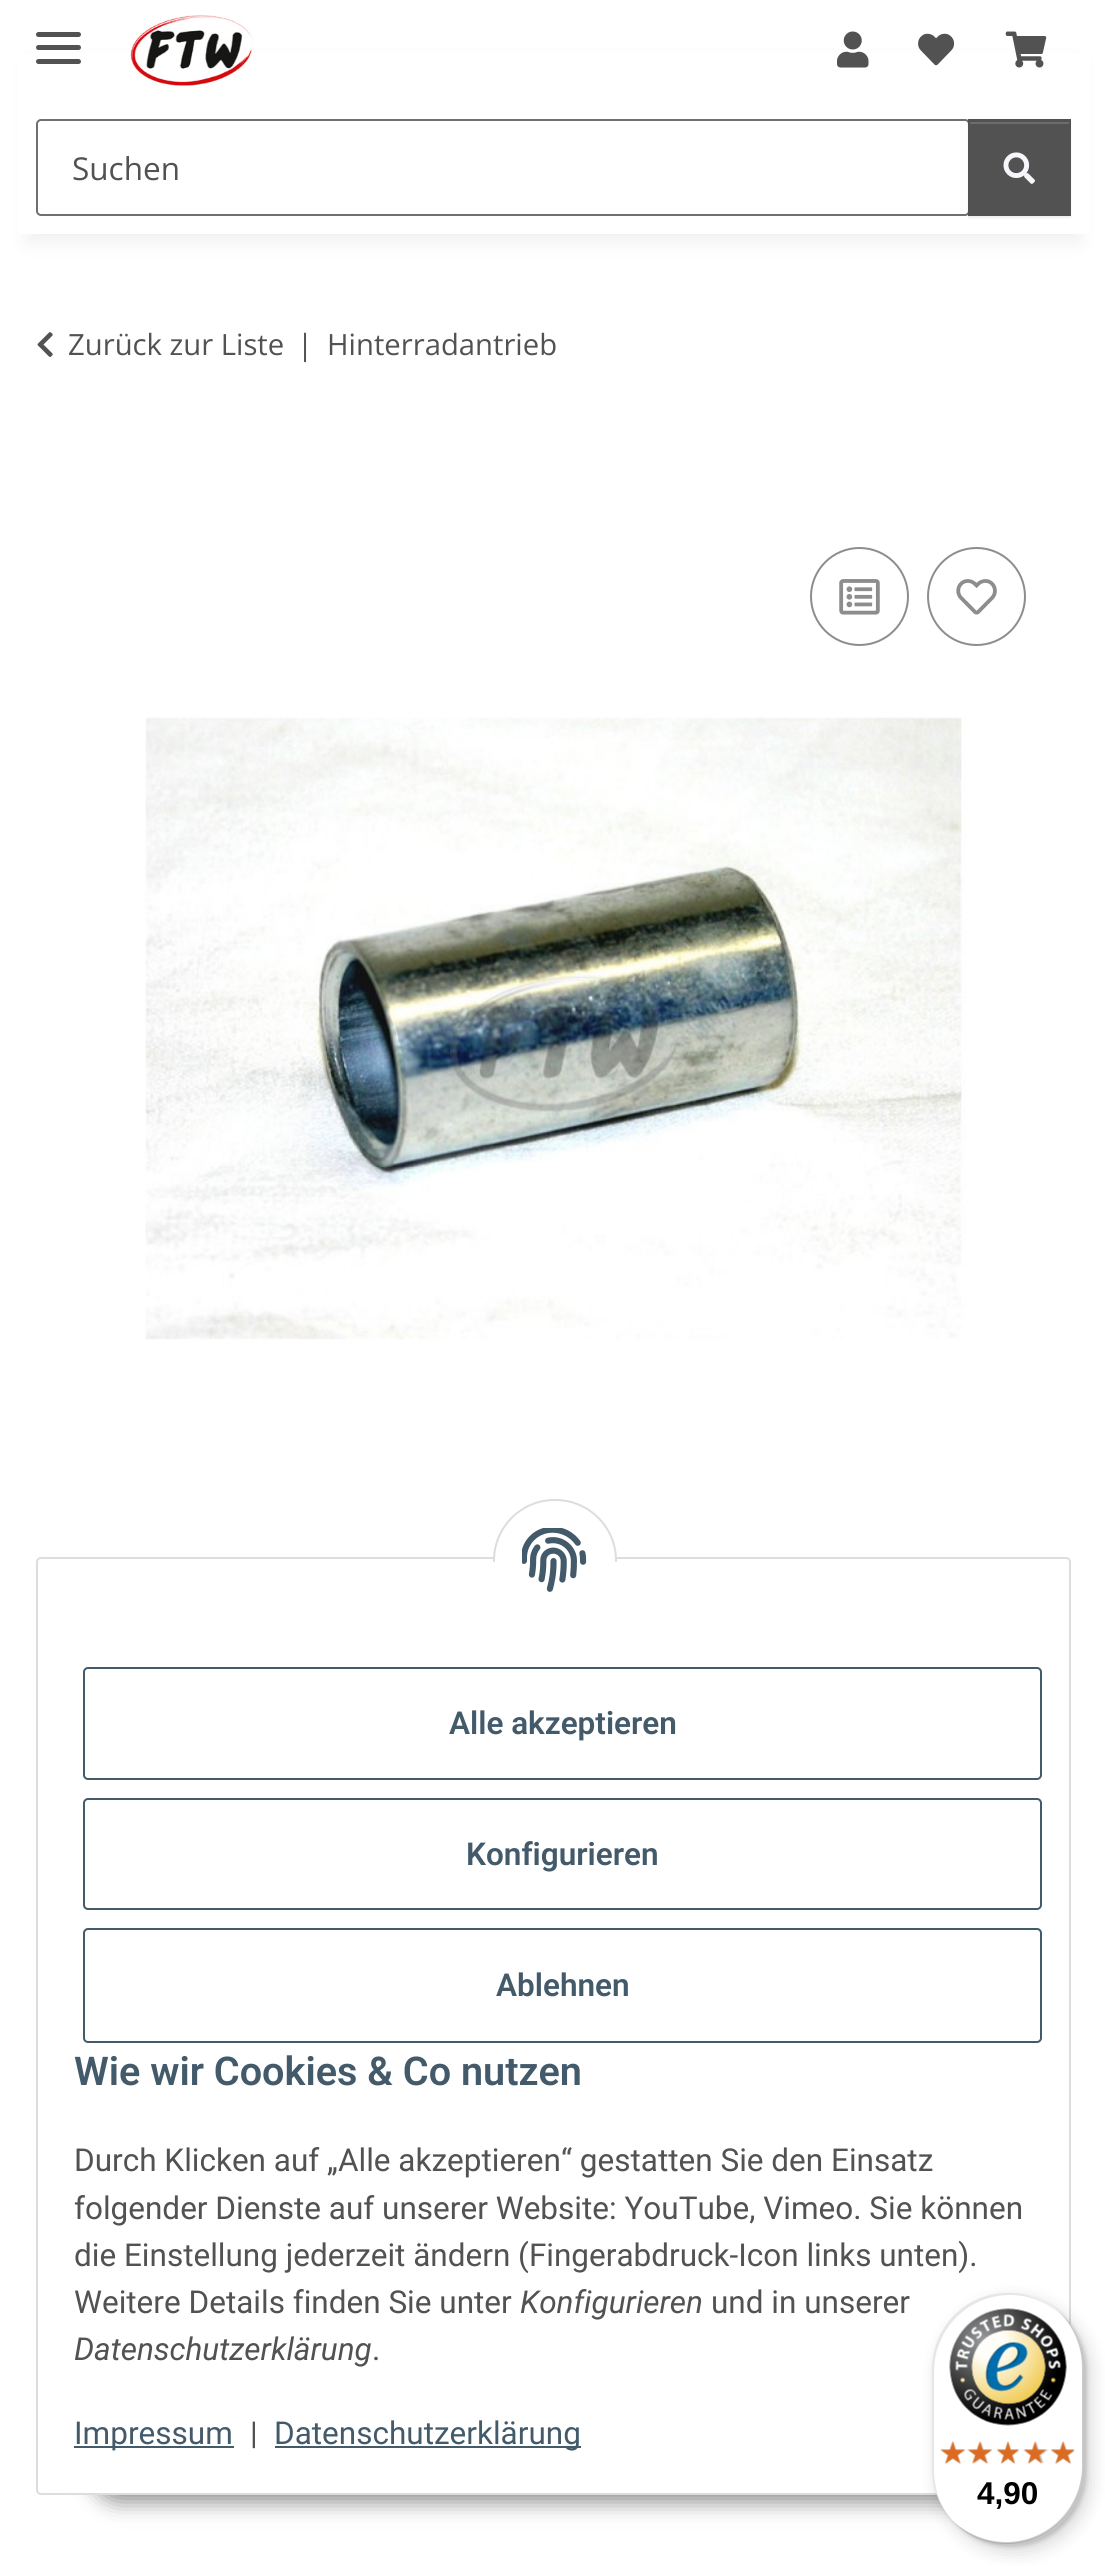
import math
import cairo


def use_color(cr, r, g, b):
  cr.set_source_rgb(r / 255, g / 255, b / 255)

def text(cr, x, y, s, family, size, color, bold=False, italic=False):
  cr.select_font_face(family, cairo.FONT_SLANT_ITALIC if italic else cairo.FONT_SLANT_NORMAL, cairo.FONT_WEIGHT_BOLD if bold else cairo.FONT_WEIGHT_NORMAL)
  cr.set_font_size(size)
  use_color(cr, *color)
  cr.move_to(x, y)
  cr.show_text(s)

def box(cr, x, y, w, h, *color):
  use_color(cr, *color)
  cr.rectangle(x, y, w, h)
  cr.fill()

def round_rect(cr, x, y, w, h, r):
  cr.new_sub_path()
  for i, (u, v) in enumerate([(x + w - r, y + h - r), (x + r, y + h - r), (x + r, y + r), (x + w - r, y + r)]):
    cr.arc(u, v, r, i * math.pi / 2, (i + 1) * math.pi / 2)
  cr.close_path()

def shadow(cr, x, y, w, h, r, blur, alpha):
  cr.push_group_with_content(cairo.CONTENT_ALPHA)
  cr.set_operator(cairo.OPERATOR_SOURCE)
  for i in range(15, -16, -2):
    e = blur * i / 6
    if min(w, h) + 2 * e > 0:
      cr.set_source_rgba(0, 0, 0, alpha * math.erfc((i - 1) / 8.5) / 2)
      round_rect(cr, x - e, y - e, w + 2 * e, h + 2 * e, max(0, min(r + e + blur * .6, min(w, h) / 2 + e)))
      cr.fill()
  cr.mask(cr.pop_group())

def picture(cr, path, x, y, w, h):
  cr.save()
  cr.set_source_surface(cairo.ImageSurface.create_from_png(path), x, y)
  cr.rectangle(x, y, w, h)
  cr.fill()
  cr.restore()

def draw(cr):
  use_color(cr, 255, 255, 255)
  cr.paint()
  use_color(cr, 0, 0, 0)
  shadow(cr, 27, 63, 1053, 180, 0, 10, 0.06)
  box(cr, 17, 53, 1073, 181, 255, 255, 255)
  use_color(cr, 82, 82, 82)
  round_rect(cr, 36, 45, 45, 5, 2.5)
  cr.fill()
  round_rect(cr, 36, 32, 45, 5, 2.5)
  cr.fill()
  round_rect(cr, 36, 59, 45, 5, 2.5)
  cr.fill()
  picture(cr, "img_01.png", 130, 15, 124, 71)
  picture(cr, "img_02.png", 837, 31, 32, 37)
  picture(cr, "img_03.png", 918, 33, 37, 33)
  picture(cr, "img_04.png", 1005, 31, 42, 37)
  round_rect(cr, 37, 120, 932, 95, 4)
  use_color(cr, 112, 112, 112)
  cr.stroke()
  use_color(cr, 0, 0, 0)
  shadow(cr, 968, 122, 103, 96, 0, 1, 0.07)
  box(cr, 968, 119, 103, 97, 82, 82, 82)
  box(cr, 970, 122, 99, 2, 108, 108, 108)
  picture(cr, "img_05.png", 1003, 152, 32, 32)
  picture(cr, "img_06.png", 37, 332, 16, 25)
  cr.arc(859.5, 596.5, 48.5, 0, 2 * math.pi)
  use_color(cr, 141, 141, 141)
  cr.stroke()
  picture(cr, "img_07.png", 839, 579, 41, 36)
  cr.arc(976.5, 596.5, 48.5, 0, 2 * math.pi)
  cr.stroke()
  picture(cr, "img_08.png", 956, 579, 41, 36)
  picture(cr, "img_09.png", 145, 717, 821, 623)
  use_color(cr, 0, 0, 0)
  shadow(cr, 90, 2430, 927, 72, 36, 11, 0.45)
  use_color(cr, 255, 255, 255)
  round_rect(cr, 37, 1558, 1033, 936, 4)
  cr.fill_preserve()
  use_color(cr, 221, 221, 221)
  cr.stroke()
  use_color(cr, 255, 255, 255)
  round_rect(cr, 494, 1500, 122, 121, 60.5)
  cr.fill_preserve()
  use_color(cr, 221, 221, 221)
  cr.stroke()
  box(cr, 493, 1562, 124, 60, 255, 255, 255)
  picture(cr, "img_10.png", 522, 1528, 65, 64)
  round_rect(cr, 84, 1668, 957, 111, 4)
  use_color(cr, 67, 90, 107)
  cr.stroke()
  round_rect(cr, 84, 1799, 957, 110, 4)
  cr.stroke()
  round_rect(cr, 84, 1929, 957, 113, 4)
  cr.stroke()
  box(cr, 74, 2446, 160, 2, 67, 90, 107)
  box(cr, 275, 2446, 306, 2, 67, 90, 107)
  use_color(cr, 0, 0, 0)
  shadow(cr, 938, 2300, 153, 252, 76.5, 9, 0.15)
  shadow(cr, 934, 2295, 153, 252, 76.5, 2, 0.15)
  use_color(cr, 255, 255, 255)
  round_rect(cr, 932, 2293, 153, 252, 76.5)
  cr.fill()
  cr.set_source_rgba(0, 0, 0, 0.1)
  cr.new_path()
  cr.move_to(1010, 2295)
  cr.curve_to(1033, 2295, 1053, 2305, 1067, 2321)
  cr.curve_to(1053, 2304, 1032, 2293, 1008, 2293)
  cr.curve_to(966, 2293, 932, 2327, 932, 2370)
  cr.line_to(932, 2468)
  cr.curve_to(932, 2489, 940, 2508, 953, 2521)
  cr.curve_to(941, 2508, 934, 2490, 934, 2470)
  cr.line_to(934, 2372)
  cr.curve_to(934, 2329, 968, 2295, 1010, 2295)
  cr.close_path()
  cr.fill()
  cr.set_source_rgba(0, 0, 0, 0.2)
  cr.new_path()
  cr.move_to(951, 2519)
  cr.curve_to(965, 2535, 986, 2545, 1008, 2545)
  cr.curve_to(1051, 2545, 1085, 2511, 1085, 2468)
  cr.line_to(1085, 2370)
  cr.curve_to(1085, 2347, 1075, 2326, 1059, 2312)
  cr.curve_to(1073, 2326, 1082, 2346, 1082, 2367)
  cr.line_to(1082, 2466)
  cr.curve_to(1082, 2508, 1048, 2542, 1006, 2542)
  cr.curve_to(985, 2542, 965, 2533, 951, 2519)
  cr.close_path()
  cr.fill()
  cr.set_source_rgba(0.196, 0.196, 0.196, 0.2)
  cr.new_path()
  cr.move_to(956, 2524)
  cr.curve_to(969, 2537, 988, 2545, 1008, 2545)
  cr.curve_to(1051, 2545, 1085, 2511, 1085, 2468)
  cr.line_to(1085, 2370)
  cr.curve_to(1085, 2347, 1075, 2326, 1059, 2312)
  cr.curve_to(1074, 2326, 1083, 2346, 1083, 2368)
  cr.line_to(1083, 2467)
  cr.curve_to(1083, 2509, 1049, 2543, 1007, 2543)
  cr.curve_to(987, 2543, 969, 2536, 956, 2524)
  cr.close_path()
  cr.fill()
  cr.set_source_rgba(1, 1, 1, 0.3)
  cr.new_path()
  cr.move_to(960, 2528)
  cr.curve_to(973, 2538, 990, 2545, 1008, 2545)
  cr.curve_to(1051, 2545, 1085, 2511, 1085, 2468)
  cr.line_to(1085, 2370)
  cr.curve_to(1085, 2342, 1070, 2317, 1048, 2304)
  cr.curve_to(1069, 2317, 1083, 2341, 1083, 2368)
  cr.line_to(1083, 2467)
  cr.curve_to(1083, 2509, 1049, 2544, 1007, 2544)
  cr.curve_to(989, 2544, 973, 2538, 960, 2528)
  cr.close_path()
  cr.fill()
  picture(cr, "img_11.png", 949, 2308, 118, 118)
  picture(cr, "img_12.png", 940, 2441, 25, 23)
  picture(cr, "img_13.png", 970, 2441, 22, 23)
  picture(cr, "img_14.png", 997, 2441, 22, 23)
  picture(cr, "img_15.png", 1024, 2441, 25, 23)
  picture(cr, "img_16.png", 1051, 2441, 25, 23)
  picture(cr, "img_17.png", 940, 2441, 26, 23)
  picture(cr, "img_18.png", 967, 2441, 26, 23)
  picture(cr, "img_19.png", 996, 2441, 24, 23)
  picture(cr, "img_20.png", 1023, 2441, 24, 23)
  picture(cr, "img_21.png", 1050, 2441, 24, 23)
  text(cr, 72, 180, "Suchen", "Open Sans", 31.5, (82, 82, 82))
  text(cr, 68, 355, "Zurück zur Liste", "Open Sans", 29.25, (82, 82, 82))
  text(cr, 297, 355, "|", "Open Sans", 29.25, (82, 82, 82))
  text(cr, 327, 355, "Hinterradantrieb", "Open Sans", 29.25, (82, 82, 82))
  text(cr, 449, 1734, "Alle akzeptieren", "Roboto SemiBold", 31.5, (67, 90, 107))
  text(cr, 466, 1865, "Konfigurieren", "Roboto SemiBold", 31.5, (67, 90, 107))
  text(cr, 496, 1996, "Ablehnen", "Roboto SemiBold", 31.5, (67, 90, 107))
  text(cr, 74, 2085, "Wie wir Cookies & Co nutzen", "Roboto SemiBold", 39.6, (67, 90, 107))
  text(cr, 74, 2171, "Durch Klicken auf „Alle akzeptieren“ gestatten Sie den Einsatz", "Roboto", 31.5, (82, 82, 82))
  text(cr, 74, 2219, "folgender Dienste auf unserer Website: YouTube, Vimeo. Sie können", "Roboto", 31.5, (82, 82, 82))
  text(cr, 74, 2266, "die Einstellung jederzeit ändern (Fingerabdruck-Icon links unten).", "Roboto", 31.5, (82, 82, 82))
  text(cr, 74, 2313, "Weitere Details finden Sie unter", "Roboto", 31.5, (82, 82, 82))
  text(cr, 520, 2313, "Konfigurieren", "Roboto", 31.5, (82, 82, 82), italic=True)
  text(cr, 711, 2313, "und in unserer", "Roboto", 31.5, (82, 82, 82))
  text(cr, 74, 2360, "Datenschutzerklärung", "Roboto", 31.5, (82, 82, 82), italic=True)
  text(cr, 372, 2360, ".", "Roboto", 31.5, (82, 82, 82))
  text(cr, 74, 2444, "Impressum", "Roboto", 31.5, (67, 90, 107))
  text(cr, 250, 2444, "|", "Roboto", 31.5, (82, 82, 82))
  text(cr, 274, 2444, "Datenschutzerklärung", "Roboto", 31.5, (67, 90, 107))
  text(cr, 977, 2504, "4,90", "Liberation Sans", 31.5, (0, 0, 0), bold=True)


surface = cairo.ImageSurface(cairo.FORMAT_RGB24, 1105, 2566)
cr = cairo.Context(surface)
options = cairo.FontOptions()
options.set_hint_metrics(cairo.HINT_METRICS_OFF)
options.set_hint_style(cairo.HINT_STYLE_NONE)
cr.set_font_options(options)
cr.set_miter_limit(4)
draw(cr)
surface.write_to_png("out.png")
